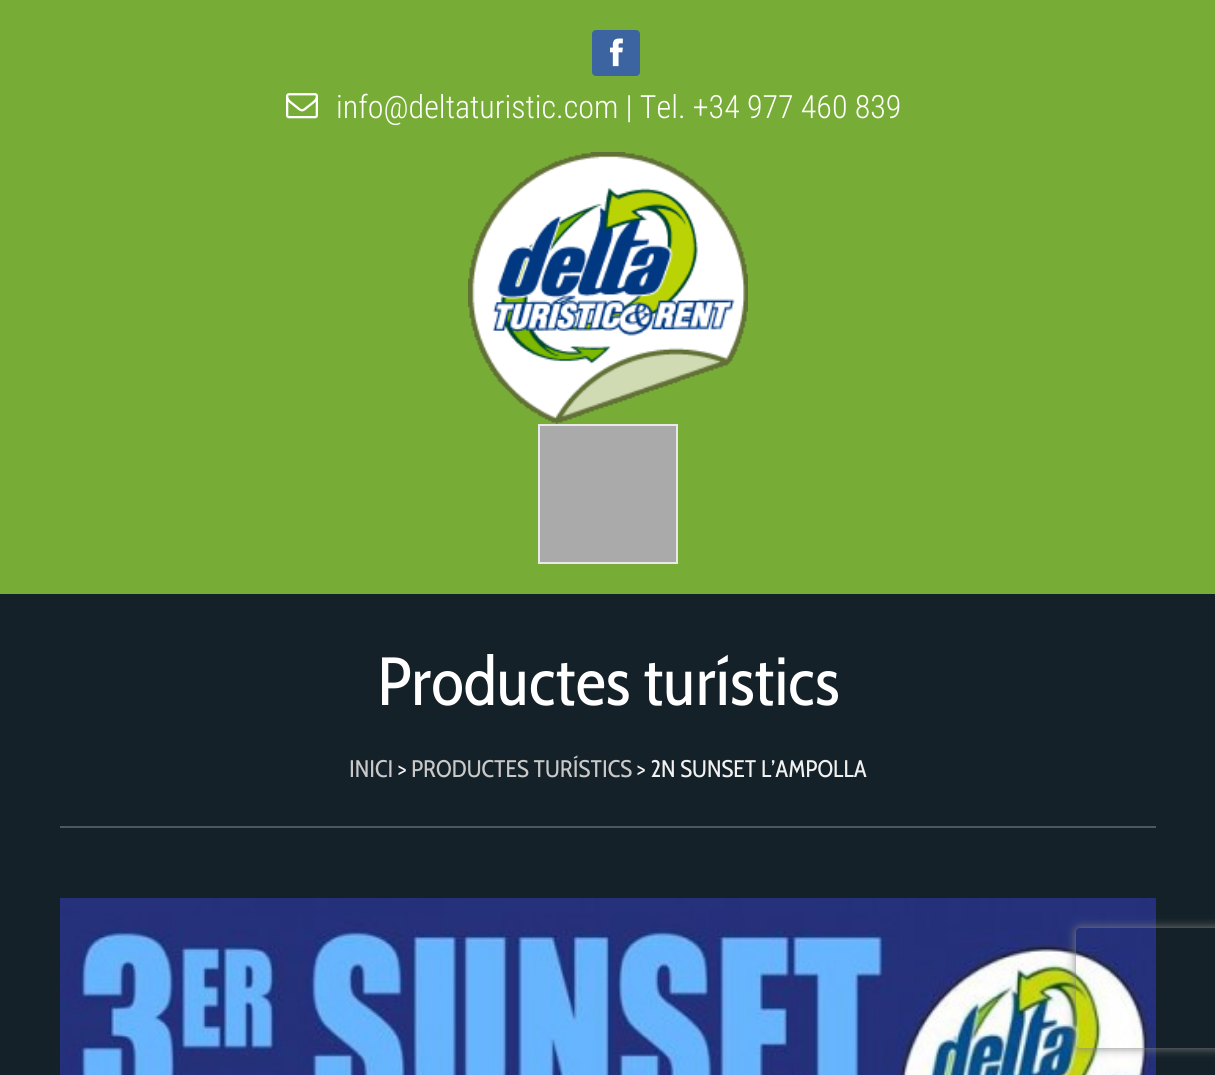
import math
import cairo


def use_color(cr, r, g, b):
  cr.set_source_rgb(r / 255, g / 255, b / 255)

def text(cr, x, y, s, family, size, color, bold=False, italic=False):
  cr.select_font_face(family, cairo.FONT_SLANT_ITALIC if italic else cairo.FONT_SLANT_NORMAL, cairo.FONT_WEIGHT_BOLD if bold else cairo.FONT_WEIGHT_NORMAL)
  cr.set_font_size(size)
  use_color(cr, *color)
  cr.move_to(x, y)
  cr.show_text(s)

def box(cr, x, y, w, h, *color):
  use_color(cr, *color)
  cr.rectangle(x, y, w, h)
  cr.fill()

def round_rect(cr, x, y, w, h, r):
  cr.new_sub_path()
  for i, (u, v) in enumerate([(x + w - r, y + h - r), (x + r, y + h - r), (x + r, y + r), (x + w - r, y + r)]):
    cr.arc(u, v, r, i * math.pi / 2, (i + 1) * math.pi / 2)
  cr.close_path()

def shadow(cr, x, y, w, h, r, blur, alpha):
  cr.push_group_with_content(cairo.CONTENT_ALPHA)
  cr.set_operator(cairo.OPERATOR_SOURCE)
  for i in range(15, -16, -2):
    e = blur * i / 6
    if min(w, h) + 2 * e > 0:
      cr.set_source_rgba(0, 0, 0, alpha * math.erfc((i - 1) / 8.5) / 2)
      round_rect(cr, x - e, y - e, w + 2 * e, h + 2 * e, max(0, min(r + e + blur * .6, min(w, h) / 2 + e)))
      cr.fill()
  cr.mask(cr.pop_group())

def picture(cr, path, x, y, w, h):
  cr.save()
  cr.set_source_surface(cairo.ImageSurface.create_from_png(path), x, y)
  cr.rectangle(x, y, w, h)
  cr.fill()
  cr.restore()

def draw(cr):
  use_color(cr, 20, 33, 40)
  cr.paint()
  box(cr, 0, 0, 1215, 594, 119, 172, 54)
  use_color(cr, 59, 100, 161)
  round_rect(cr, 592, 30, 48, 46, 4)
  cr.fill()
  picture(cr, "img_01.png", 610, 38, 13, 29)
  picture(cr, "img_02.png", 286, 93, 32, 26)
  picture(cr, "img_03.png", 468, 152, 280, 272)
  use_color(cr, 170, 170, 170)
  cr.rectangle(539, 425, 138, 138)
  cr.fill_preserve()
  use_color(cr, 233, 233, 233)
  cr.stroke()
  box(cr, 60, 826, 1096, 2, 78, 87, 93)
  picture(cr, "img_04.png", 60, 898, 1096, 177)
  cr.save()
  cr.set_fill_rule(cairo.FILL_RULE_EVEN_ODD)
  cr.new_path()
  cr.move_to(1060, 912)
  cr.line_to(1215, 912)
  cr.line_to(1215, 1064)
  cr.line_to(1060, 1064)
  cr.close_path()
  cr.move_to(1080, 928)
  cr.line_to(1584, 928)
  cr.curve_to(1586, 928, 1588, 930, 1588, 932)
  cr.line_to(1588, 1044)
  cr.curve_to(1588, 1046, 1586, 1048, 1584, 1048)
  cr.line_to(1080, 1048)
  cr.curve_to(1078, 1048, 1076, 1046, 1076, 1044)
  cr.line_to(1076, 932)
  cr.curve_to(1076, 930, 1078, 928, 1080, 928)
  cr.close_path()
  cr.clip()
  use_color(cr, 128, 128, 128)
  shadow(cr, 1076, 928, 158, 120, 4, 5, 1)
  cr.restore()
  text(cr, 336, 118, "info@deltaturistic.com | Tel. +34 977 460 839", "Roboto Condensed Light", 32, (255, 255, 255))
  text(cr, 377, 705, "Productes turístics", "Cabin Condensed", 68, (255, 255, 255))
  text(cr, 349, 777, "INICI", "Cabin Condensed", 24, (201, 201, 201))
  text(cr, 398, 777, ">", "Cabin Condensed", 24, (241, 241, 241))
  text(cr, 411, 777, "PRODUCTES TURÍSTICS", "Cabin Condensed", 24, (201, 201, 201))
  text(cr, 637, 777, "> 2N SUNSET L’AMPOLLA", "Cabin Condensed", 24, (241, 241, 241))


surface = cairo.ImageSurface(cairo.FORMAT_RGB24, 1215, 1075)
cr = cairo.Context(surface)
options = cairo.FontOptions()
options.set_hint_metrics(cairo.HINT_METRICS_OFF)
options.set_hint_style(cairo.HINT_STYLE_NONE)
cr.set_font_options(options)
cr.set_miter_limit(4)
draw(cr)
surface.write_to_png("out.png")
